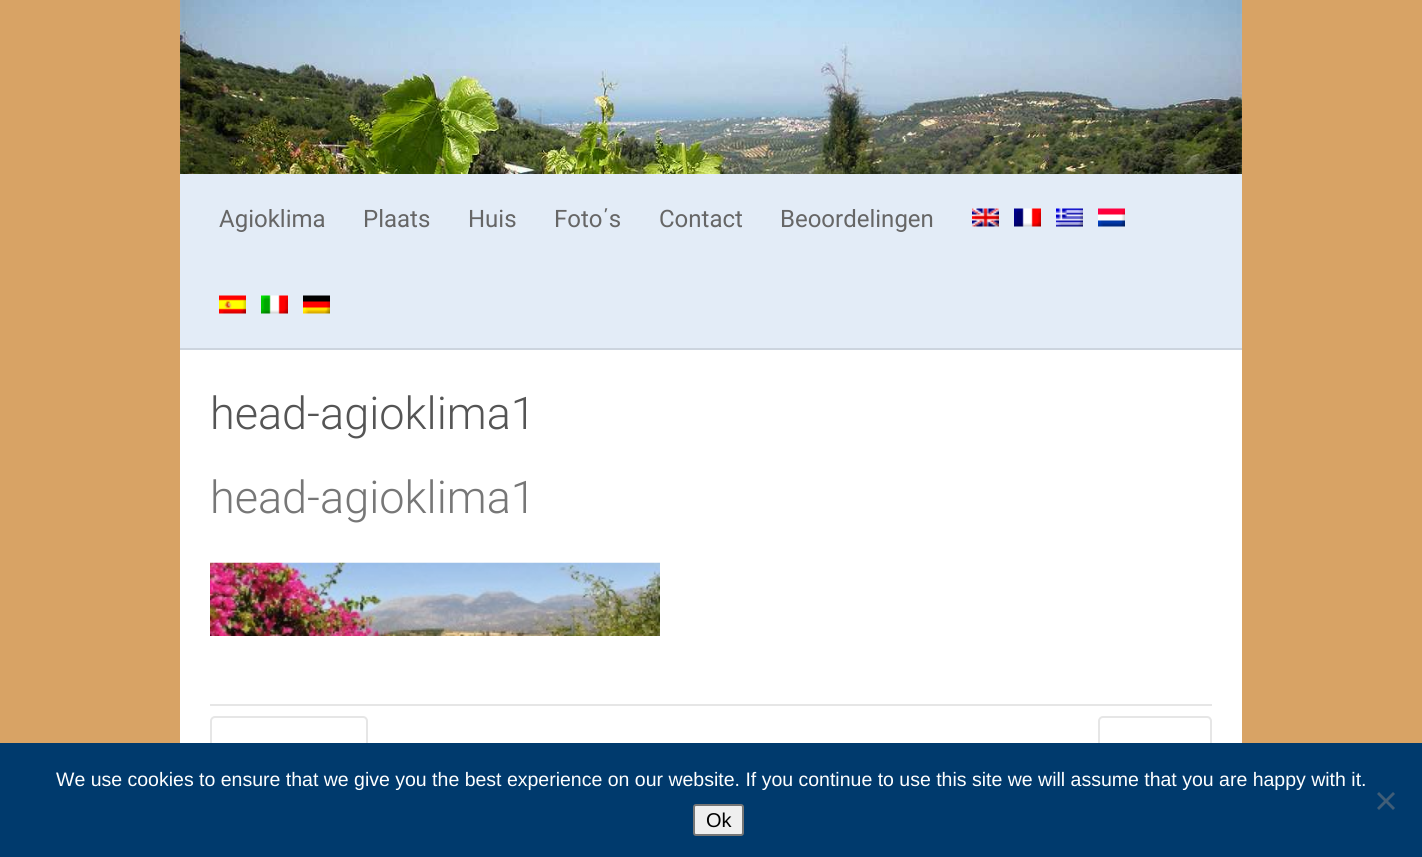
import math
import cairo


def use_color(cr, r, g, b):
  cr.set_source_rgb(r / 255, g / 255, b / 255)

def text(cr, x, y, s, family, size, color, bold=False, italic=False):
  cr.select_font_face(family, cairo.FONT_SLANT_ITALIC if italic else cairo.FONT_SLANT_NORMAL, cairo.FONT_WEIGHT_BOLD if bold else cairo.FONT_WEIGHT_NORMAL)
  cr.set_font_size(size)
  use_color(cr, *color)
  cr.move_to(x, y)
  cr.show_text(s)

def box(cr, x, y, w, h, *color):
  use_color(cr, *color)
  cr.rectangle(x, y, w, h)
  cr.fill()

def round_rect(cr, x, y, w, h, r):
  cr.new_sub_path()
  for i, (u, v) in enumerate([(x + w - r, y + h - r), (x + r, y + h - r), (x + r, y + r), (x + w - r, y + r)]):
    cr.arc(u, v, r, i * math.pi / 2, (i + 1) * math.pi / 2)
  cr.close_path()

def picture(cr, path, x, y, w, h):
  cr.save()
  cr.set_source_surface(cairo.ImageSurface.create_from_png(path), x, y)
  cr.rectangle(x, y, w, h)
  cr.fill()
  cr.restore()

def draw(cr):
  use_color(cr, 216, 163, 101)
  cr.paint()
  box(cr, 180, 350, 1062, 393, 255, 255, 255)
  picture(cr, "img_01.png", 180, 0, 1062, 174)
  box(cr, 180, 174, 1062, 174, 227, 236, 247)
  box(cr, 180, 348, 1062, 2, 204, 212, 222)
  picture(cr, "img_02.png", 972, 208, 27, 19)
  picture(cr, "img_03.png", 1014, 208, 27, 19)
  picture(cr, "img_04.png", 1056, 208, 27, 19)
  picture(cr, "img_05.png", 1098, 208, 27, 19)
  picture(cr, "img_06.png", 219, 295, 27, 19)
  picture(cr, "img_07.png", 261, 295, 27, 19)
  picture(cr, "img_08.png", 303, 295, 27, 19)
  picture(cr, "img_09.png", 210, 562, 450, 74)
  box(cr, 210, 704, 1002, 2, 230, 230, 230)
  round_rect(cr, 211, 717, 156, 47, 4)
  cr.stroke()
  round_rect(cr, 1099, 717, 112, 47, 4)
  cr.stroke()
  box(cr, 0, 743, 1422, 114, 0, 58, 109)
  use_color(cr, 64, 93, 119)
  cr.new_path()
  cr.move_to(1393, 792)
  cr.line_to(1395, 794)
  cr.line_to(1379, 810)
  cr.line_to(1377, 808)
  cr.close_path()
  cr.fill()
  cr.new_path()
  cr.move_to(1377, 794)
  cr.line_to(1379, 792)
  cr.line_to(1395, 808)
  cr.line_to(1393, 810)
  cr.close_path()
  cr.fill()
  use_color(cr, 239, 239, 239)
  round_rect(cr, 694, 805, 49, 30, 2)
  cr.fill_preserve()
  use_color(cr, 118, 118, 118)
  cr.stroke()
  text(cr, 219, 227, "Agioklima", "Roboto", 24, (102, 102, 102))
  text(cr, 363, 227, "Plaats", "Roboto", 24, (102, 102, 102))
  text(cr, 468, 227, "Huis", "Roboto", 24, (102, 102, 102))
  text(cr, 554, 227, "Foto΄s", "Roboto", 24, (102, 102, 102))
  text(cr, 659, 227, "Contact", "Roboto", 24, (102, 102, 102))
  text(cr, 780, 227, "Beoordelingen", "Roboto", 24, (102, 102, 102))
  text(cr, 210, 429, "head-agioklima1", "Roboto Light", 45, (85, 85, 85))
  text(cr, 210, 513, "head-agioklima1", "Roboto Light", 45, (119, 119, 119))
  text(cr, 56, 786, "We use cookies to ensure that we give you the best experience on our website. If you continue to use this site we will assume that you are happy with it.", "Liberation Sans", 19.5, (255, 255, 255))
  text(cr, 706, 827, "Ok", "Liberation Sans", 20, (0, 0, 0))


surface = cairo.ImageSurface(cairo.FORMAT_RGB24, 1422, 857)
cr = cairo.Context(surface)
options = cairo.FontOptions()
options.set_hint_metrics(cairo.HINT_METRICS_OFF)
options.set_hint_style(cairo.HINT_STYLE_NONE)
cr.set_font_options(options)
cr.set_miter_limit(4)
draw(cr)
surface.write_to_png("out.png")
